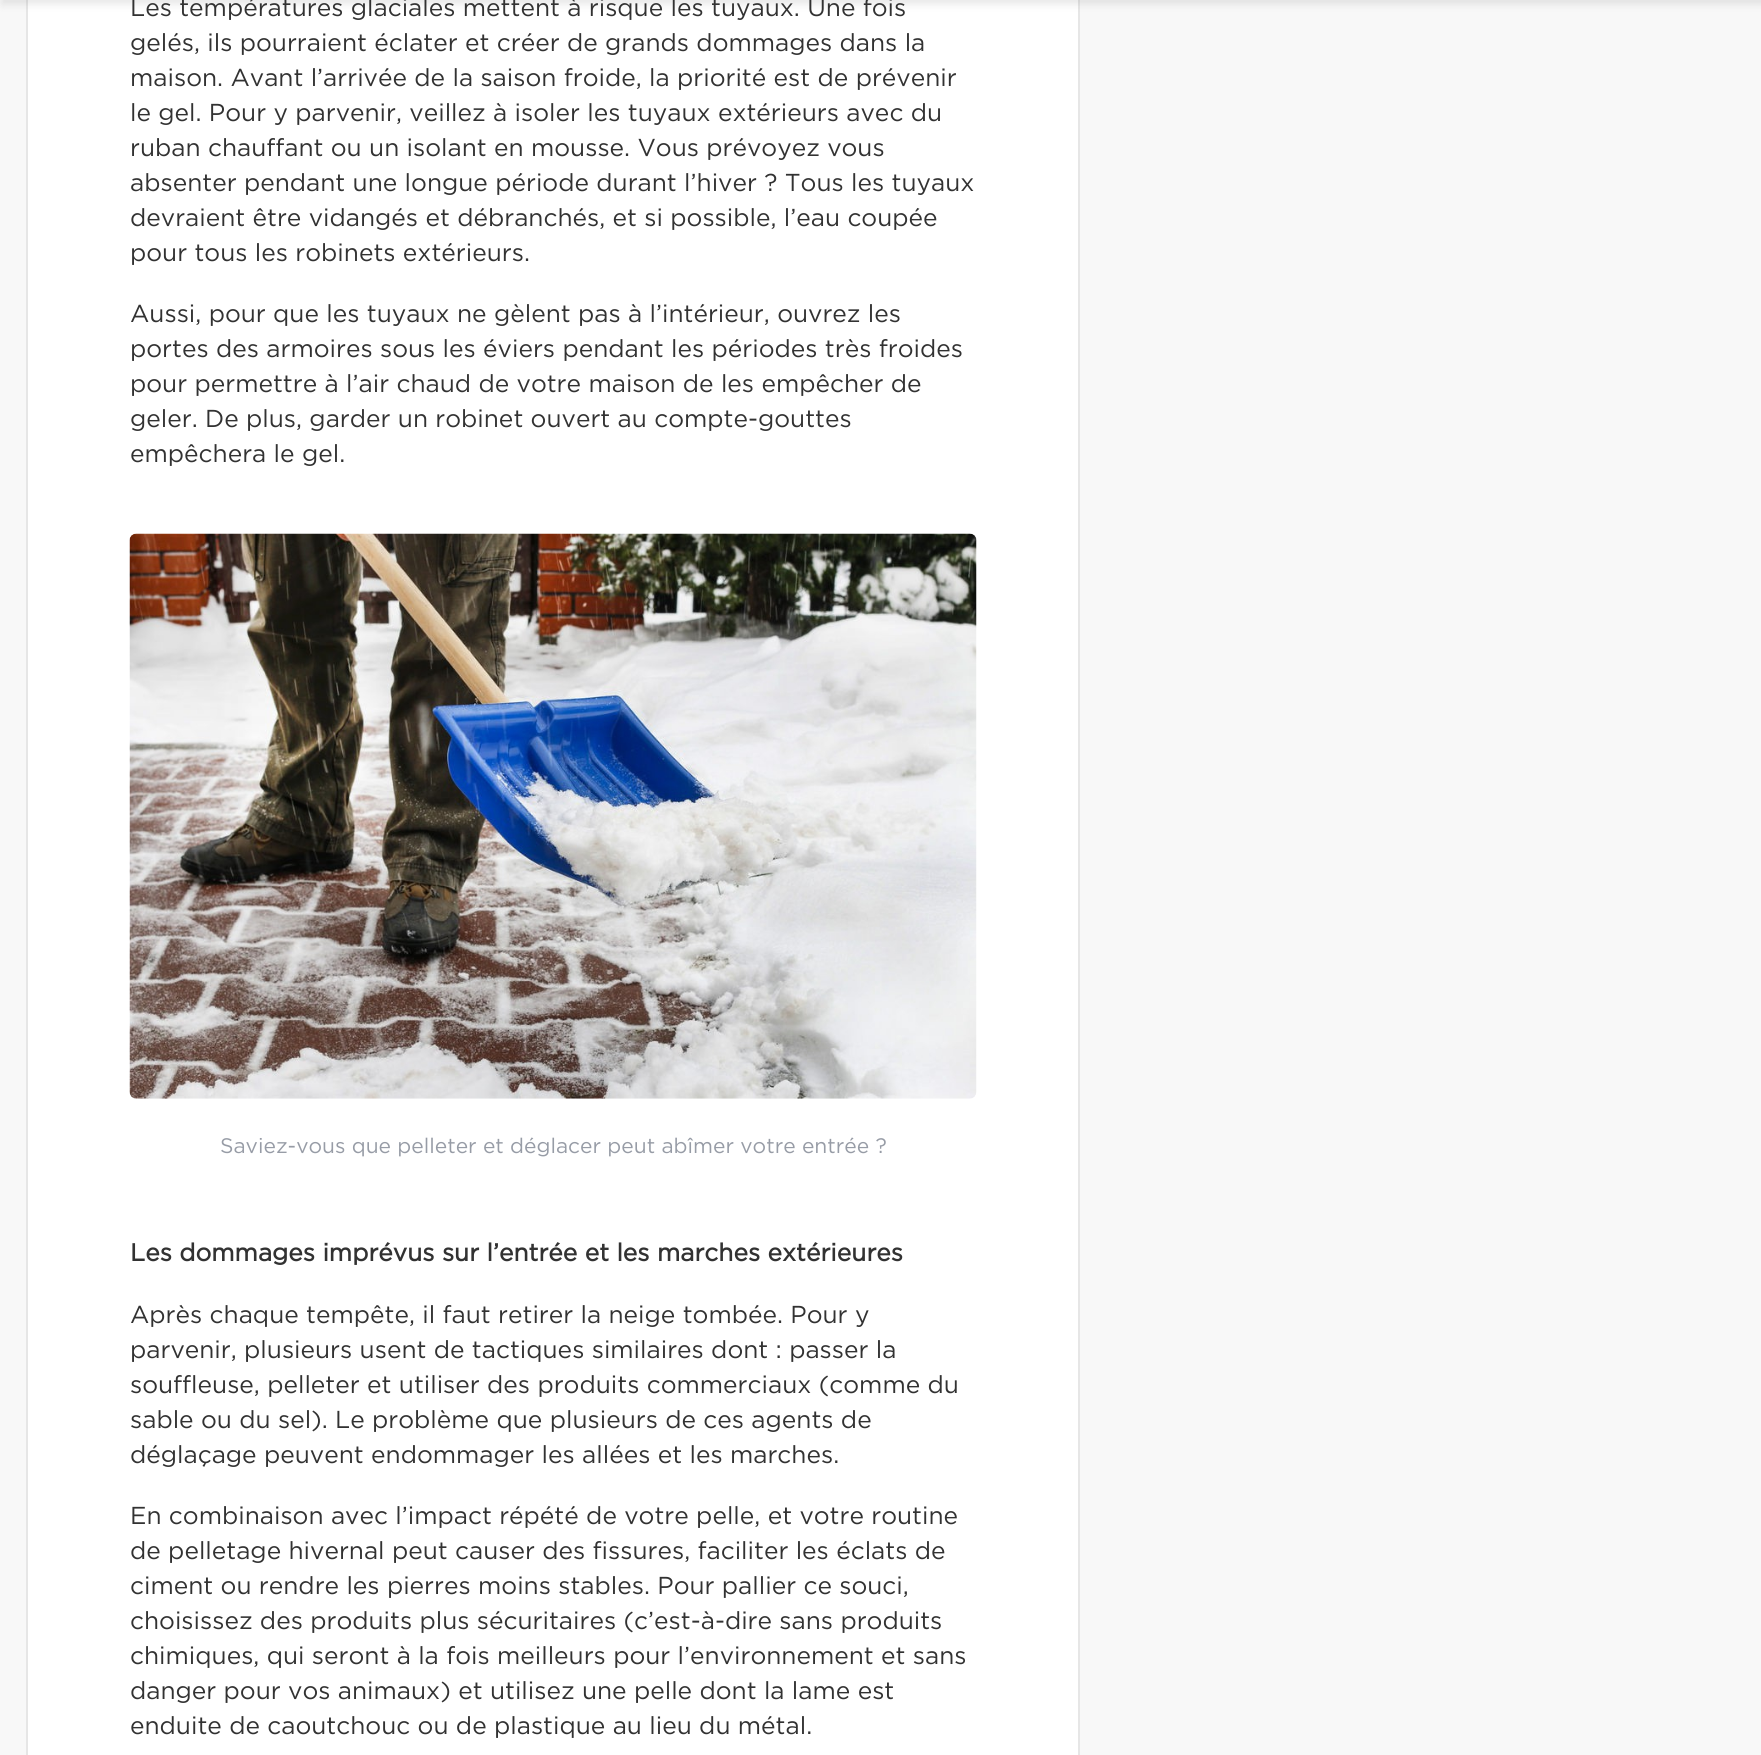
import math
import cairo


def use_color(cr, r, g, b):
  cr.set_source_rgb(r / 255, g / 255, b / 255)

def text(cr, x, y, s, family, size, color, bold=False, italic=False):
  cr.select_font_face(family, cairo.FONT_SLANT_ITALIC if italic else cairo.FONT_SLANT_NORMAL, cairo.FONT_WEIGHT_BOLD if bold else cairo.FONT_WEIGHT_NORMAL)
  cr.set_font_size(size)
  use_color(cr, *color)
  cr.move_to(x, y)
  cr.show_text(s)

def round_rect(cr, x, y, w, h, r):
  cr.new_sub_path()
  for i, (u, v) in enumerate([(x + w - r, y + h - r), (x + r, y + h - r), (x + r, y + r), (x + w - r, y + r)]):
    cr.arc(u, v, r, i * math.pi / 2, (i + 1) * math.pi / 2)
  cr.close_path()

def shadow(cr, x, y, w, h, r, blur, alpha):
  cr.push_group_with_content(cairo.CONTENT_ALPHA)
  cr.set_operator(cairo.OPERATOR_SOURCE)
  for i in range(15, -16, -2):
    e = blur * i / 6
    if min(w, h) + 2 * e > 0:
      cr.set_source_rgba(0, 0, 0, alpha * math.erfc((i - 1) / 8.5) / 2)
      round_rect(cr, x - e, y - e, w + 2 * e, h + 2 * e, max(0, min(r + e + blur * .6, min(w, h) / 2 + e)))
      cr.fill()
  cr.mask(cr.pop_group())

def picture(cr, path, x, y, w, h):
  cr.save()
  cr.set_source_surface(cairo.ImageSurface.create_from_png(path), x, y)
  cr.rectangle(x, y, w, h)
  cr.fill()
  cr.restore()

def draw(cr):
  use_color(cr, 248, 248, 248)
  cr.paint()
  use_color(cr, 255, 255, 255)
  cr.rectangle(27, -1, 1052, 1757)
  cr.fill_preserve()
  use_color(cr, 230, 230, 230)
  cr.stroke()
  use_color(cr, 0, 0, 0)
  shadow(cr, 2, -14, 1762, 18, 0, 4.5, 0.1)
  picture(cr, "img_01.png", 129, 533, 848, 566)
  text(cr, 130, 16, "Les températures glaciales mettent à risque les tuyaux. Une fois", "Gotham", 24.5, (50, 50, 50))
  text(cr, 130, 51, "gelés, ils pourraient éclater et créer de grands dommages dans la", "Gotham", 24.5, (50, 50, 50))
  text(cr, 130, 86, "maison. Avant l’arrivée de la saison froide, la priorité est de prévenir", "Gotham", 24.5, (50, 50, 50))
  text(cr, 130, 121, "le gel. Pour y parvenir, veillez à isoler les tuyaux extérieurs avec du", "Gotham", 24.5, (50, 50, 50))
  text(cr, 130, 156, "ruban chauffant ou un isolant en mousse. Vous prévoyez vous", "Gotham", 24.5, (50, 50, 50))
  text(cr, 130, 191, "absenter pendant une longue période durant l’hiver ? Tous les tuyaux", "Gotham", 24.5, (50, 50, 50))
  text(cr, 130, 226, "devraient être vidangés et débranchés, et si possible, l’eau coupée", "Gotham", 24.5, (50, 50, 50))
  text(cr, 130, 261, "pour tous les robinets extérieurs.", "Gotham", 24.5, (50, 50, 50))
  text(cr, 130, 322, "Aussi, pour que les tuyaux ne gèlent pas à l’intérieur, ouvrez les", "Gotham", 24.5, (50, 50, 50))
  text(cr, 130, 357, "portes des armoires sous les éviers pendant les périodes très froides", "Gotham", 24.5, (50, 50, 50))
  text(cr, 130, 392, "pour permettre à l’air chaud de votre maison de les empêcher de", "Gotham", 24.5, (50, 50, 50))
  text(cr, 130, 427, "geler. De plus, garder un robinet ouvert au compte-gouttes", "Gotham", 24.5, (50, 50, 50))
  text(cr, 130, 462, "empêchera le gel.", "Gotham", 24.5, (50, 50, 50))
  text(cr, 220, 1153, "Saviez-vous que pelleter et déglacer peut abîmer votre entrée ?", "Gotham", 21, (151, 156, 166))
  text(cr, 130, 1261, "Les dommages imprévus sur l’entrée et les marches extérieures", "Gotham", 24.5, (50, 50, 50), bold=True)
  text(cr, 130, 1323, "Après chaque tempête, il faut retirer la neige tombée. Pour y", "Gotham", 24.5, (50, 50, 50))
  text(cr, 130, 1358, "parvenir, plusieurs usent de tactiques similaires dont : passer la", "Gotham", 24.5, (50, 50, 50))
  text(cr, 130, 1393, "souffleuse, pelleter et utiliser des produits commerciaux (comme du", "Gotham", 24.5, (50, 50, 50))
  text(cr, 130, 1428, "sable ou du sel). Le problème que plusieurs de ces agents de", "Gotham", 24.5, (50, 50, 50))
  text(cr, 130, 1463, "déglaçage peuvent endommager les allées et les marches.", "Gotham", 24.5, (50, 50, 50))
  text(cr, 130, 1524, "En combinaison avec l’impact répété de votre pelle, et votre routine", "Gotham", 24.5, (50, 50, 50))
  text(cr, 130, 1559, "de pelletage hivernal peut causer des fissures, faciliter les éclats de", "Gotham", 24.5, (50, 50, 50))
  text(cr, 130, 1594, "ciment ou rendre les pierres moins stables. Pour pallier ce souci,", "Gotham", 24.5, (50, 50, 50))
  text(cr, 130, 1629, "choisissez des produits plus sécuritaires (c’est-à-dire sans produits", "Gotham", 24.5, (50, 50, 50))
  text(cr, 130, 1664, "chimiques, qui seront à la fois meilleurs pour l’environnement et sans", "Gotham", 24.5, (50, 50, 50))
  text(cr, 130, 1699, "danger pour vos animaux) et utilisez une pelle dont la lame est", "Gotham", 24.5, (50, 50, 50))
  text(cr, 130, 1734, "enduite de caoutchouc ou de plastique au lieu du métal.", "Gotham", 24.5, (50, 50, 50))


surface = cairo.ImageSurface(cairo.FORMAT_RGB24, 1761, 1755)
cr = cairo.Context(surface)
options = cairo.FontOptions()
options.set_hint_metrics(cairo.HINT_METRICS_OFF)
options.set_hint_style(cairo.HINT_STYLE_NONE)
cr.set_font_options(options)
cr.set_miter_limit(4)
draw(cr)
surface.write_to_png("out.png")
